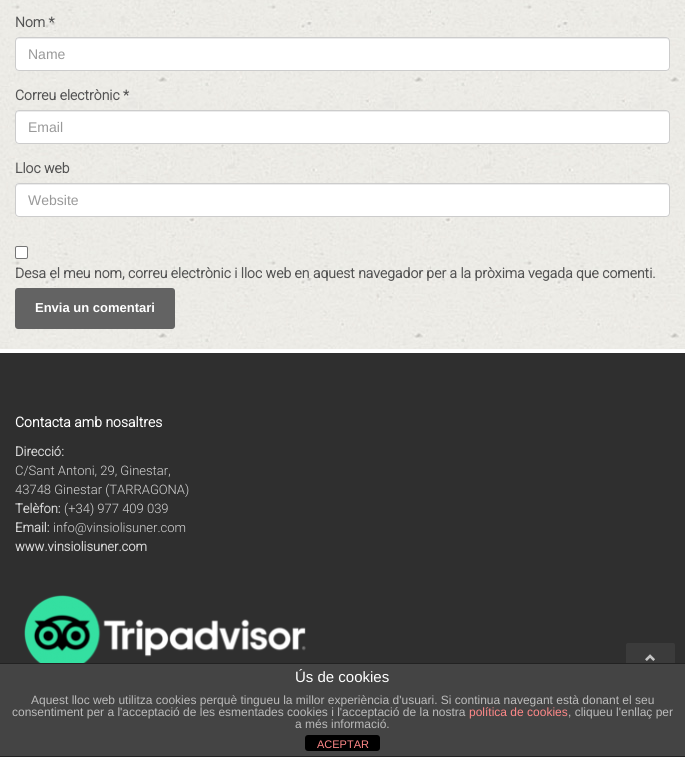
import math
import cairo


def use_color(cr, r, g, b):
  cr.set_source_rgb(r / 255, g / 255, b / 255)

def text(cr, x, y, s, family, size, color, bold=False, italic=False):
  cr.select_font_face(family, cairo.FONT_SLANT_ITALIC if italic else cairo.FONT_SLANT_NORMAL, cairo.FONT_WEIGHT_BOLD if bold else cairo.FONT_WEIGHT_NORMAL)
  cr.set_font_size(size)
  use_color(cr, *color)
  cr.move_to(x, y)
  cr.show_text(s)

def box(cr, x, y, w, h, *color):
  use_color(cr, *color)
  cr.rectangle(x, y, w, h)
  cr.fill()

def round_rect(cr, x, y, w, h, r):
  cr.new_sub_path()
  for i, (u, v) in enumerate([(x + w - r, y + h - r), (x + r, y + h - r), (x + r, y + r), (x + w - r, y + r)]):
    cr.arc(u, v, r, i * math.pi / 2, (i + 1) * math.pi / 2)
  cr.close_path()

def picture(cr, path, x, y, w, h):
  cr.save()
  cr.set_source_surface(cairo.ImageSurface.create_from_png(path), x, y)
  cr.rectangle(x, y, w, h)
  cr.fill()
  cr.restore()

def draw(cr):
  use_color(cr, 255, 255, 255)
  cr.paint()
  picture(cr, "img_01.png", 0, 0, 685, 349)
  use_color(cr, 255, 255, 255)
  round_rect(cr, 15, 37, 655, 34, 4)
  cr.fill()
  use_color(cr, 236, 236, 236)
  cr.new_path()
  cr.move_to(19, 39)
  cr.line_to(666, 39)
  cr.curve_to(668, 39, 669, 40, 669, 42)
  cr.line_to(669, 41)
  cr.curve_to(669, 39, 668, 38, 666, 38)
  cr.line_to(19, 38)
  cr.curve_to(17, 38, 16, 39, 16, 41)
  cr.line_to(16, 42)
  cr.curve_to(16, 40, 17, 39, 19, 39)
  cr.close_path()
  cr.fill()
  round_rect(cr, 15.5, 37.5, 654, 33, 3.5)
  use_color(cr, 204, 204, 204)
  cr.set_line_width(1)
  cr.stroke()
  use_color(cr, 255, 255, 255)
  round_rect(cr, 15, 110, 655, 34, 4)
  cr.fill()
  use_color(cr, 236, 236, 236)
  cr.new_path()
  cr.move_to(19, 112)
  cr.line_to(666, 112)
  cr.curve_to(668, 112, 669, 113, 669, 115)
  cr.line_to(669, 114)
  cr.curve_to(669, 112, 668, 111, 666, 111)
  cr.line_to(19, 111)
  cr.curve_to(17, 111, 16, 112, 16, 114)
  cr.line_to(16, 115)
  cr.curve_to(16, 113, 17, 112, 19, 112)
  cr.close_path()
  cr.fill()
  round_rect(cr, 15.5, 110.5, 654, 33, 3.5)
  use_color(cr, 204, 204, 204)
  cr.stroke()
  use_color(cr, 255, 255, 255)
  round_rect(cr, 15, 183, 655, 34, 4)
  cr.fill()
  use_color(cr, 236, 236, 236)
  cr.new_path()
  cr.move_to(19, 185)
  cr.line_to(666, 185)
  cr.curve_to(668, 185, 669, 186, 669, 188)
  cr.line_to(669, 187)
  cr.curve_to(669, 185, 668, 184, 666, 184)
  cr.line_to(19, 184)
  cr.curve_to(17, 184, 16, 185, 16, 187)
  cr.line_to(16, 188)
  cr.curve_to(16, 186, 17, 185, 19, 185)
  cr.close_path()
  cr.fill()
  round_rect(cr, 15.5, 183.5, 654, 33, 3.5)
  use_color(cr, 204, 204, 204)
  cr.stroke()
  use_color(cr, 255, 255, 255)
  round_rect(cr, 15.5, 246.5, 12, 12, 1.5)
  cr.fill_preserve()
  use_color(cr, 118, 118, 118)
  cr.stroke()
  use_color(cr, 99, 99, 99)
  round_rect(cr, 15, 288, 160, 41, 3)
  cr.fill()
  box(cr, 0, 353, 685, 310, 47, 47, 47)
  picture(cr, "img_02.png", 24, 595, 282, 68)
  use_color(cr, 59, 59, 59)
  round_rect(cr, 626, 643, 49, 49, 2)
  cr.fill()
  picture(cr, "img_03.png", 645, 654, 10, 7)
  box(cr, 0, 664, 685, 92, 68, 68, 68)
  box(cr, 0, 663, 685, 1, 34, 34, 34)
  box(cr, 0, 756, 685, 1, 34, 34, 34)
  use_color(cr, 0, 0, 0)
  round_rect(cr, 305, 735, 75, 16, 3)
  cr.fill()
  text(cr, 15, 27, "Nom *", "Roboto", 14, (83, 83, 83), bold=True)
  text(cr, 28, 59, "Name", "Liberation Sans", 14, (153, 153, 153))
  text(cr, 15, 100, "Correu electrònic *", "Roboto", 14, (83, 83, 83), bold=True)
  text(cr, 28, 132, "Email", "Liberation Sans", 14, (153, 153, 153))
  text(cr, 15, 173, "Lloc web", "Roboto", 14, (83, 83, 83), bold=True)
  text(cr, 28, 205, "Website", "Liberation Sans", 14, (153, 153, 153))
  text(cr, 15, 278, "Desa el meu nom, correu electrònic i lloc web en aquest navegador per a la pròxima vegada que comenti.", "Roboto", 14, (83, 83, 83), bold=True)
  text(cr, 35, 312, "Envia un comentari", "Liberation Sans", 13, (255, 255, 255), bold=True)
  text(cr, 15, 427, "Contacta amb nosaltres", "Roboto", 14, (255, 255, 255), bold=True)
  text(cr, 15, 456, "Direcció:", "Roboto", 13, (213, 213, 213), bold=True)
  text(cr, 15, 475, "C/Sant Antoni, 29, Ginestar,", "Roboto Light", 13, (213, 213, 213))
  text(cr, 15, 494, "43748 Ginestar (TARRAGONA)", "Roboto Light", 13, (213, 213, 213))
  text(cr, 15, 513, "Telèfon:", "Roboto", 13, (213, 213, 213), bold=True)
  text(cr, 64, 513, "(+34) 977 409 039", "Roboto Light", 13, (213, 213, 213))
  text(cr, 15, 532, "Email:", "Roboto", 13, (213, 213, 213), bold=True)
  text(cr, 53, 532, "info@vinsiolisuner.com", "Roboto Light", 13, (213, 213, 213))
  text(cr, 15, 551, "www.vinsiolisuner.com", "Roboto", 13, (213, 213, 213), bold=True)
  text(cr, 295, 682, "Ús de cookies", "Liberation Sans", 15, (255, 255, 255))
  text(cr, 31, 704, "Aquest lloc web utilitza cookies perquè tingueu la millor experiència d'usuari. Si continua navegant està donant el seu", "Liberation Sans", 12, (187, 187, 187))
  text(cr, 12, 716, "consentiment per a l'acceptació de les esmentades cookies i l'acceptació de la nostra", "Liberation Sans", 12, (187, 187, 187))
  text(cr, 469, 716, "política de cookies", "Liberation Sans", 12, (255, 136, 136))
  text(cr, 568, 716, ", cliqueu l'enllaç per", "Liberation Sans", 12, (187, 187, 187))
  text(cr, 295, 728, "a més informació.", "Liberation Sans", 12, (187, 187, 187))
  text(cr, 317, 748, "ACEPTAR", "Liberation Sans", 11, (255, 136, 136))


surface = cairo.ImageSurface(cairo.FORMAT_RGB24, 685, 757)
cr = cairo.Context(surface)
options = cairo.FontOptions()
options.set_hint_metrics(cairo.HINT_METRICS_OFF)
options.set_hint_style(cairo.HINT_STYLE_NONE)
cr.set_font_options(options)
cr.set_miter_limit(4)
draw(cr)
surface.write_to_png("out.png")
